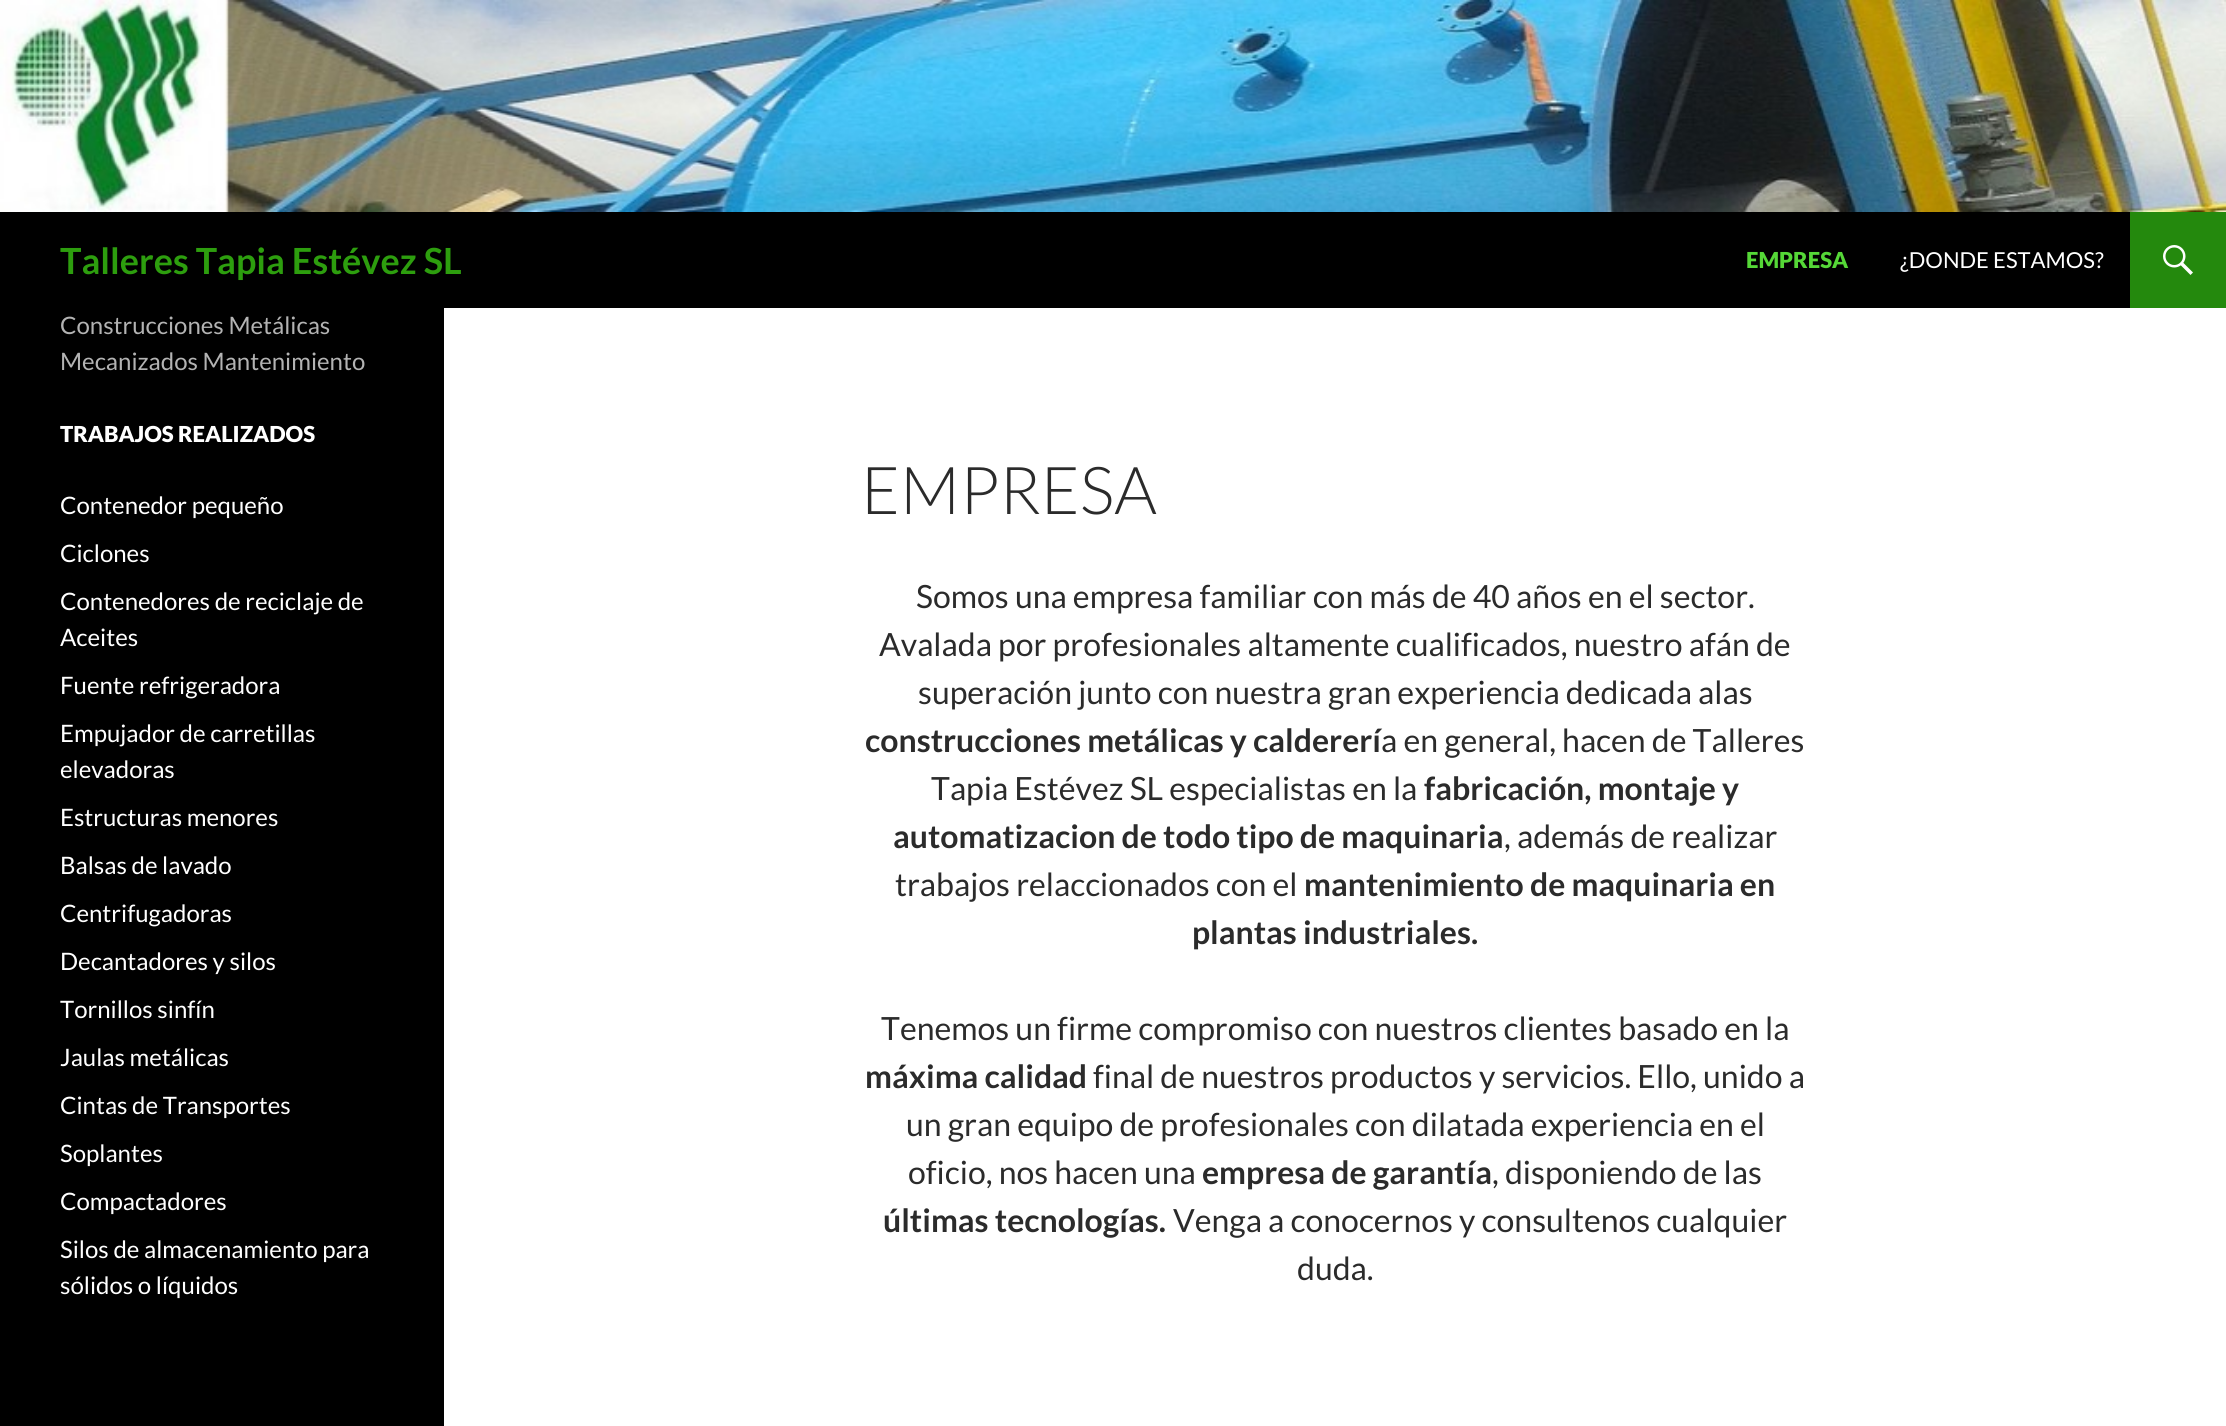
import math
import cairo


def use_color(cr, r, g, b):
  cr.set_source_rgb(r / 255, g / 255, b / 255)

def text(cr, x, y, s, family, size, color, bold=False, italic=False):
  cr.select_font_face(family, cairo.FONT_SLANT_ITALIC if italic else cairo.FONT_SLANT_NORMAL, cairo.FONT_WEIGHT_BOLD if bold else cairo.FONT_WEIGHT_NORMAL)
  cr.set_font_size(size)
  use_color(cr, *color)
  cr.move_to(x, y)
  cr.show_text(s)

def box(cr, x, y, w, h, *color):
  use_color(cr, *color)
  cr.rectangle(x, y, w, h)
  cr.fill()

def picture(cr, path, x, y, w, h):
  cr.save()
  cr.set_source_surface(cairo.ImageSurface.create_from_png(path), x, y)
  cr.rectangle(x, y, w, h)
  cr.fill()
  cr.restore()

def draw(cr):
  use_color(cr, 255, 255, 255)
  cr.paint()
  picture(cr, "img_01.png", 0, 0, 2226, 212)
  box(cr, 0, 212, 2130, 96, 0, 0, 0)
  box(cr, 2130, 212, 96, 96, 36, 137, 13)
  picture(cr, "img_02.png", 2163, 245, 30, 30)
  box(cr, 0, 308, 444, 1118, 0, 0, 0)
  text(cr, 60, 274, "Talleres Tapia Estévez SL", "Lato", 36, (45, 158, 14), bold=True)
  text(cr, 1746, 268, "EMPRESA", "Lato Black", 22, (85, 215, 55))
  text(cr, 1900, 268, "¿DONDE ESTAMOS?", "Lato", 22, (255, 255, 255))
  text(cr, 60, 334, "Construcciones Metálicas", "Lato", 24, (179, 179, 179))
  text(cr, 60, 370, "Mecanizados Mantenimiento", "Lato", 24, (179, 179, 179))
  text(cr, 60, 442, "TRABAJOS REALIZADOS", "Lato Black", 22, (255, 255, 255))
  text(cr, 60, 514, "Contenedor pequeño", "Lato", 24, (255, 255, 255))
  text(cr, 60, 562, "Ciclones", "Lato", 24, (255, 255, 255))
  text(cr, 60, 610, "Contenedores de reciclaje de", "Lato", 24, (255, 255, 255))
  text(cr, 60, 646, "Aceites", "Lato", 24, (255, 255, 255))
  text(cr, 60, 694, "Fuente refrigeradora", "Lato", 24, (255, 255, 255))
  text(cr, 60, 742, "Empujador de carretillas", "Lato", 24, (255, 255, 255))
  text(cr, 60, 778, "elevadoras", "Lato", 24, (255, 255, 255))
  text(cr, 60, 826, "Estructuras menores", "Lato", 24, (255, 255, 255))
  text(cr, 60, 874, "Balsas de lavado", "Lato", 24, (255, 255, 255))
  text(cr, 60, 922, "Centrifugadoras", "Lato", 24, (255, 255, 255))
  text(cr, 60, 970, "Decantadores y silos", "Lato", 24, (255, 255, 255))
  text(cr, 60, 1018, "Tornillos sinfín", "Lato", 24, (255, 255, 255))
  text(cr, 60, 1066, "Jaulas metálicas", "Lato", 24, (255, 255, 255))
  text(cr, 60, 1114, "Cintas de Transportes", "Lato", 24, (255, 255, 255))
  text(cr, 60, 1162, "Soplantes", "Lato", 24, (255, 255, 255))
  text(cr, 60, 1210, "Compactadores", "Lato", 24, (255, 255, 255))
  text(cr, 60, 1258, "Silos de almacenamiento para", "Lato", 24, (255, 255, 255))
  text(cr, 60, 1294, "sólidos o líquidos", "Lato", 24, (255, 255, 255))
  text(cr, 861, 514, "EMPRESA", "Lato Light", 66, (43, 43, 43))
  text(cr, 916, 608, "Somos una empresa familiar con más de 40 años en el sector.", "Lato", 32, (43, 43, 43))
  text(cr, 879, 656, "Avalada por profesionales altamente cualificados, nuestro afán de", "Lato", 32, (43, 43, 43))
  text(cr, 918, 704, "superación junto con nuestra gran experiencia dedicada alas", "Lato", 32, (43, 43, 43))
  text(cr, 865, 752, "construcciones metálicas y caldererí", "Lato", 32, (43, 43, 43), bold=True)
  text(cr, 1381, 752, "a en general, hacen de Talleres", "Lato", 32, (43, 43, 43))
  text(cr, 931, 800, "Tapia Estévez SL especialistas en la", "Lato", 32, (43, 43, 43))
  text(cr, 1424, 800, "fabricación, montaje y", "Lato", 32, (43, 43, 43), bold=True)
  text(cr, 893, 848, "automatizacion de todo tipo de maquinaria", "Lato", 32, (43, 43, 43), bold=True)
  text(cr, 1504, 848, ", además de realizar", "Lato", 32, (43, 43, 43))
  text(cr, 895, 896, "trabajos relaccionados con el", "Lato", 32, (43, 43, 43))
  text(cr, 1304, 896, "mantenimiento de maquinaria en", "Lato", 32, (43, 43, 43), bold=True)
  text(cr, 1192, 944, "plantas industriales.", "Lato", 32, (43, 43, 43), bold=True)
  text(cr, 881, 1040, "Tenemos un firme compromiso con nuestros clientes basado en la", "Lato", 32, (43, 43, 43))
  text(cr, 865, 1088, "máxima calidad", "Lato", 32, (43, 43, 43), bold=True)
  text(cr, 1093, 1088, "final de nuestros productos y servicios. Ello, unido a", "Lato", 32, (43, 43, 43))
  text(cr, 906, 1136, "un gran equipo de profesionales con dilatada experiencia en el", "Lato", 32, (43, 43, 43))
  text(cr, 908, 1184, "oficio, nos hacen una", "Lato", 32, (43, 43, 43))
  text(cr, 1202, 1184, "empresa de garantía", "Lato", 32, (43, 43, 43), bold=True)
  text(cr, 1492, 1184, ", disponiendo de las", "Lato", 32, (43, 43, 43))
  text(cr, 883, 1232, "últimas tecnologías.", "Lato", 32, (43, 43, 43), bold=True)
  text(cr, 1173, 1232, "Venga a conocernos y consultenos cualquier", "Lato", 32, (43, 43, 43))
  text(cr, 1297, 1280, "duda.", "Lato", 32, (43, 43, 43))


surface = cairo.ImageSurface(cairo.FORMAT_RGB24, 2226, 1426)
cr = cairo.Context(surface)
options = cairo.FontOptions()
options.set_hint_metrics(cairo.HINT_METRICS_OFF)
options.set_hint_style(cairo.HINT_STYLE_NONE)
cr.set_font_options(options)
cr.set_miter_limit(4)
draw(cr)
surface.write_to_png("out.png")
